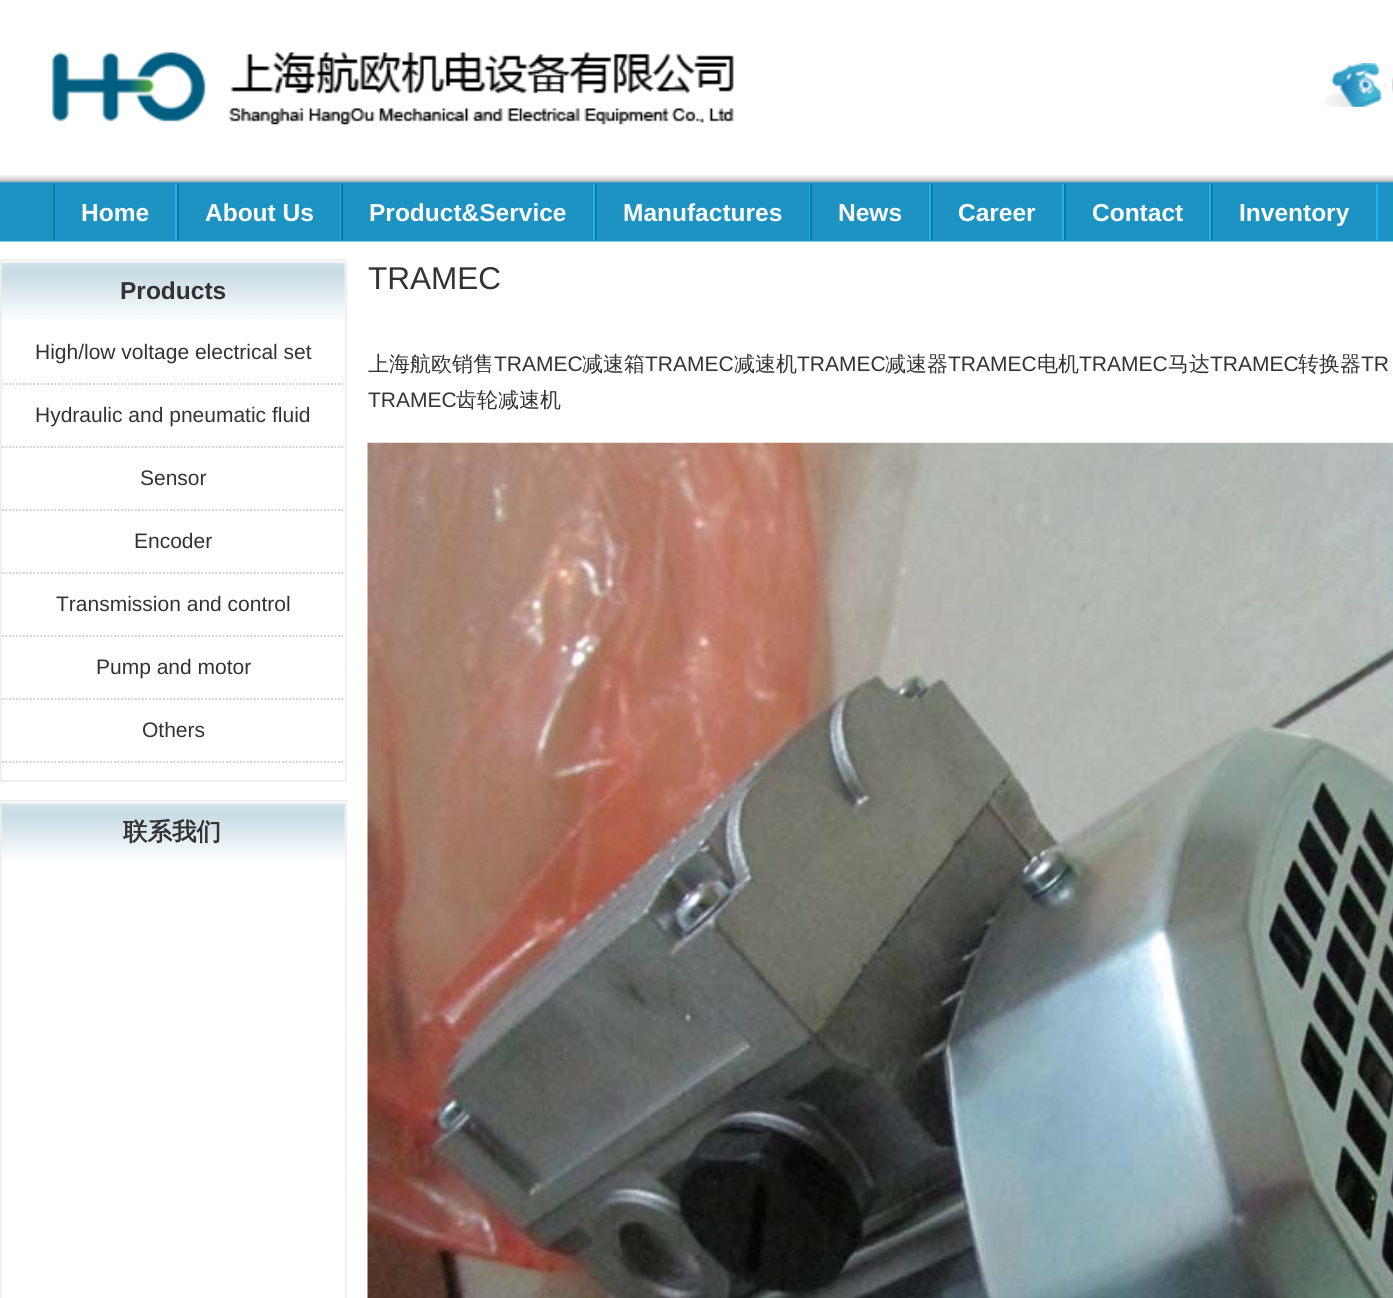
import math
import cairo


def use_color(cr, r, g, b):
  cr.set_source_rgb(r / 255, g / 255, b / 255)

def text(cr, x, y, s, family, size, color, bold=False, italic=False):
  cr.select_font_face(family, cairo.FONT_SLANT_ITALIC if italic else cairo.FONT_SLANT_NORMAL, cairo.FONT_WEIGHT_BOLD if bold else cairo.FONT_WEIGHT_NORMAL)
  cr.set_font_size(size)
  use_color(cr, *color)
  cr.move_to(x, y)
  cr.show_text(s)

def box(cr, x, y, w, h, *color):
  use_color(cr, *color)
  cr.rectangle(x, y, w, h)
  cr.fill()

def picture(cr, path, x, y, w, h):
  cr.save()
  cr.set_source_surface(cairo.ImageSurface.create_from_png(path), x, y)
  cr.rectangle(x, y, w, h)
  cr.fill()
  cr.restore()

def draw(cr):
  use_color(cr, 255, 255, 255)
  cr.paint()
  picture(cr, "img_01.png", 52, 52, 682, 73)
  picture(cr, "img_02.png", 1323, 63, 70, 44)
  picture(cr, "img_03.png", 0, 175, 1393, 67)
  box(cr, 175, 184, 2, 56, 26, 179, 241)
  box(cr, 53, 184, 2, 56, 18, 120, 159)
  box(cr, 340, 184, 1, 56, 26, 179, 241)
  box(cr, 177, 184, 2, 56, 18, 120, 159)
  box(cr, 593, 184, 2, 56, 26, 179, 241)
  box(cr, 341, 184, 2, 56, 18, 120, 159)
  box(cr, 809, 184, 1, 56, 26, 179, 241)
  box(cr, 595, 184, 2, 56, 18, 120, 159)
  box(cr, 929, 184, 2, 56, 26, 179, 241)
  box(cr, 810, 184, 2, 56, 18, 120, 159)
  box(cr, 1062, 184, 2, 56, 26, 179, 241)
  box(cr, 931, 184, 2, 56, 18, 120, 159)
  box(cr, 1209, 184, 2, 56, 26, 179, 241)
  box(cr, 1064, 184, 2, 56, 18, 120, 159)
  box(cr, 1376, 184, 2, 56, 26, 179, 241)
  box(cr, 1211, 184, 2, 56, 18, 120, 159)
  cr.rectangle(1, 260, 345, 521)
  use_color(cr, 239, 239, 239)
  cr.stroke()
  picture(cr, "img_04.png", 1, 262, 344, 57)
  cr.new_path()
  cr.move_to(2, 384)
  cr.line_to(345, 384)
  use_color(cr, 204, 204, 204)
  cr.set_line_width(1.8)
  cr.set_dash([1.75, 1.75])
  cr.stroke()
  cr.new_path()
  cr.move_to(2, 447)
  cr.line_to(345, 447)
  cr.stroke()
  cr.new_path()
  cr.move_to(2, 510)
  cr.line_to(345, 510)
  cr.stroke()
  cr.new_path()
  cr.move_to(2, 573)
  cr.line_to(345, 573)
  cr.stroke()
  cr.new_path()
  cr.move_to(2, 636)
  cr.line_to(345, 636)
  cr.stroke()
  cr.new_path()
  cr.move_to(2, 699)
  cr.line_to(345, 699)
  cr.stroke()
  cr.new_path()
  cr.move_to(2, 762)
  cr.line_to(345, 762)
  cr.stroke()
  cr.rectangle(1, 801, 345, 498)
  use_color(cr, 239, 239, 239)
  cr.set_line_width(2)
  cr.set_dash([])
  cr.stroke()
  picture(cr, "img_05.png", 1, 803, 344, 57)
  picture(cr, "img_06.png", 367, 442, 1026, 856)
  text(cr, 81, 221, "Home", "Liberation Sans", 24.5, (255, 255, 255), bold=True)
  text(cr, 205, 221, "About Us", "Liberation Sans", 24.5, (255, 255, 255), bold=True)
  text(cr, 369, 221, "Product&Service", "Liberation Sans", 24.5, (255, 255, 255), bold=True)
  text(cr, 623, 221, "Manufactures", "Liberation Sans", 24.5, (255, 255, 255), bold=True)
  text(cr, 838, 221, "News", "Liberation Sans", 24.5, (255, 255, 255), bold=True)
  text(cr, 958, 221, "Career", "Liberation Sans", 24.5, (255, 255, 255), bold=True)
  text(cr, 1092, 221, "Contact", "Liberation Sans", 24.5, (255, 255, 255), bold=True)
  text(cr, 1239, 221, "Inventory", "Liberation Sans", 24.5, (255, 255, 255), bold=True)
  text(cr, 120, 299, "Products", "Liberation Sans", 24.5, (51, 51, 51), bold=True)
  text(cr, 35, 359, "High/low voltage electrical set", "Liberation Sans", 21, (51, 51, 51))
  text(cr, 35, 422, "Hydraulic and pneumatic fluid", "Liberation Sans", 21, (51, 51, 51))
  text(cr, 140, 485, "Sensor", "Liberation Sans", 21, (51, 51, 51))
  text(cr, 134, 548, "Encoder", "Liberation Sans", 21, (51, 51, 51))
  text(cr, 56, 611, "Transmission and control", "Liberation Sans", 21, (51, 51, 51))
  text(cr, 96, 674, "Pump and motor", "Liberation Sans", 21, (51, 51, 51))
  text(cr, 142, 737, "Others", "Liberation Sans", 21, (51, 51, 51))
  text(cr, 123, 840, "联系我们", "WenQuanYi Zen Hei", 24.5, (51, 51, 51), bold=True)
  text(cr, 368, 289, "TRAMEC", "Liberation Sans", 31.5, (51, 51, 51))
  text(cr, 368, 371, "上海航欧销售", "WenQuanYi Zen Hei Medium", 21, (51, 51, 51))
  text(cr, 494, 371, "TRAMEC", "Liberation Sans", 21, (51, 51, 51))
  text(cr, 582, 371, "减速箱", "WenQuanYi Zen Hei Medium", 21, (51, 51, 51))
  text(cr, 645, 371, "TRAMEC", "Liberation Sans", 21, (51, 51, 51))
  text(cr, 734, 371, "减速机", "WenQuanYi Zen Hei Medium", 21, (51, 51, 51))
  text(cr, 797, 371, "TRAMEC", "Liberation Sans", 21, (51, 51, 51))
  text(cr, 885, 371, "减速器", "WenQuanYi Zen Hei Medium", 21, (51, 51, 51))
  text(cr, 948, 371, "TRAMEC", "Liberation Sans", 21, (51, 51, 51))
  text(cr, 1037, 371, "电机", "WenQuanYi Zen Hei Medium", 21, (51, 51, 51))
  text(cr, 1079, 371, "TRAMEC", "Liberation Sans", 21, (51, 51, 51))
  text(cr, 1168, 371, "马达", "WenQuanYi Zen Hei Medium", 21, (51, 51, 51))
  text(cr, 1210, 371, "TRAMEC", "Liberation Sans", 21, (51, 51, 51))
  text(cr, 1298, 371, "转换器", "WenQuanYi Zen Hei Medium", 21, (51, 51, 51))
  text(cr, 1361, 371, "TR", "Liberation Sans", 21, (51, 51, 51))
  text(cr, 368, 407, "TRAMEC", "Liberation Sans", 21, (51, 51, 51))
  text(cr, 456, 407, "齿轮减速机", "WenQuanYi Zen Hei Medium", 21, (51, 51, 51))


surface = cairo.ImageSurface(cairo.FORMAT_RGB24, 1393, 1298)
cr = cairo.Context(surface)
options = cairo.FontOptions()
options.set_hint_metrics(cairo.HINT_METRICS_OFF)
options.set_hint_style(cairo.HINT_STYLE_NONE)
cr.set_font_options(options)
cr.set_miter_limit(4)
draw(cr)
surface.write_to_png("out.png")
